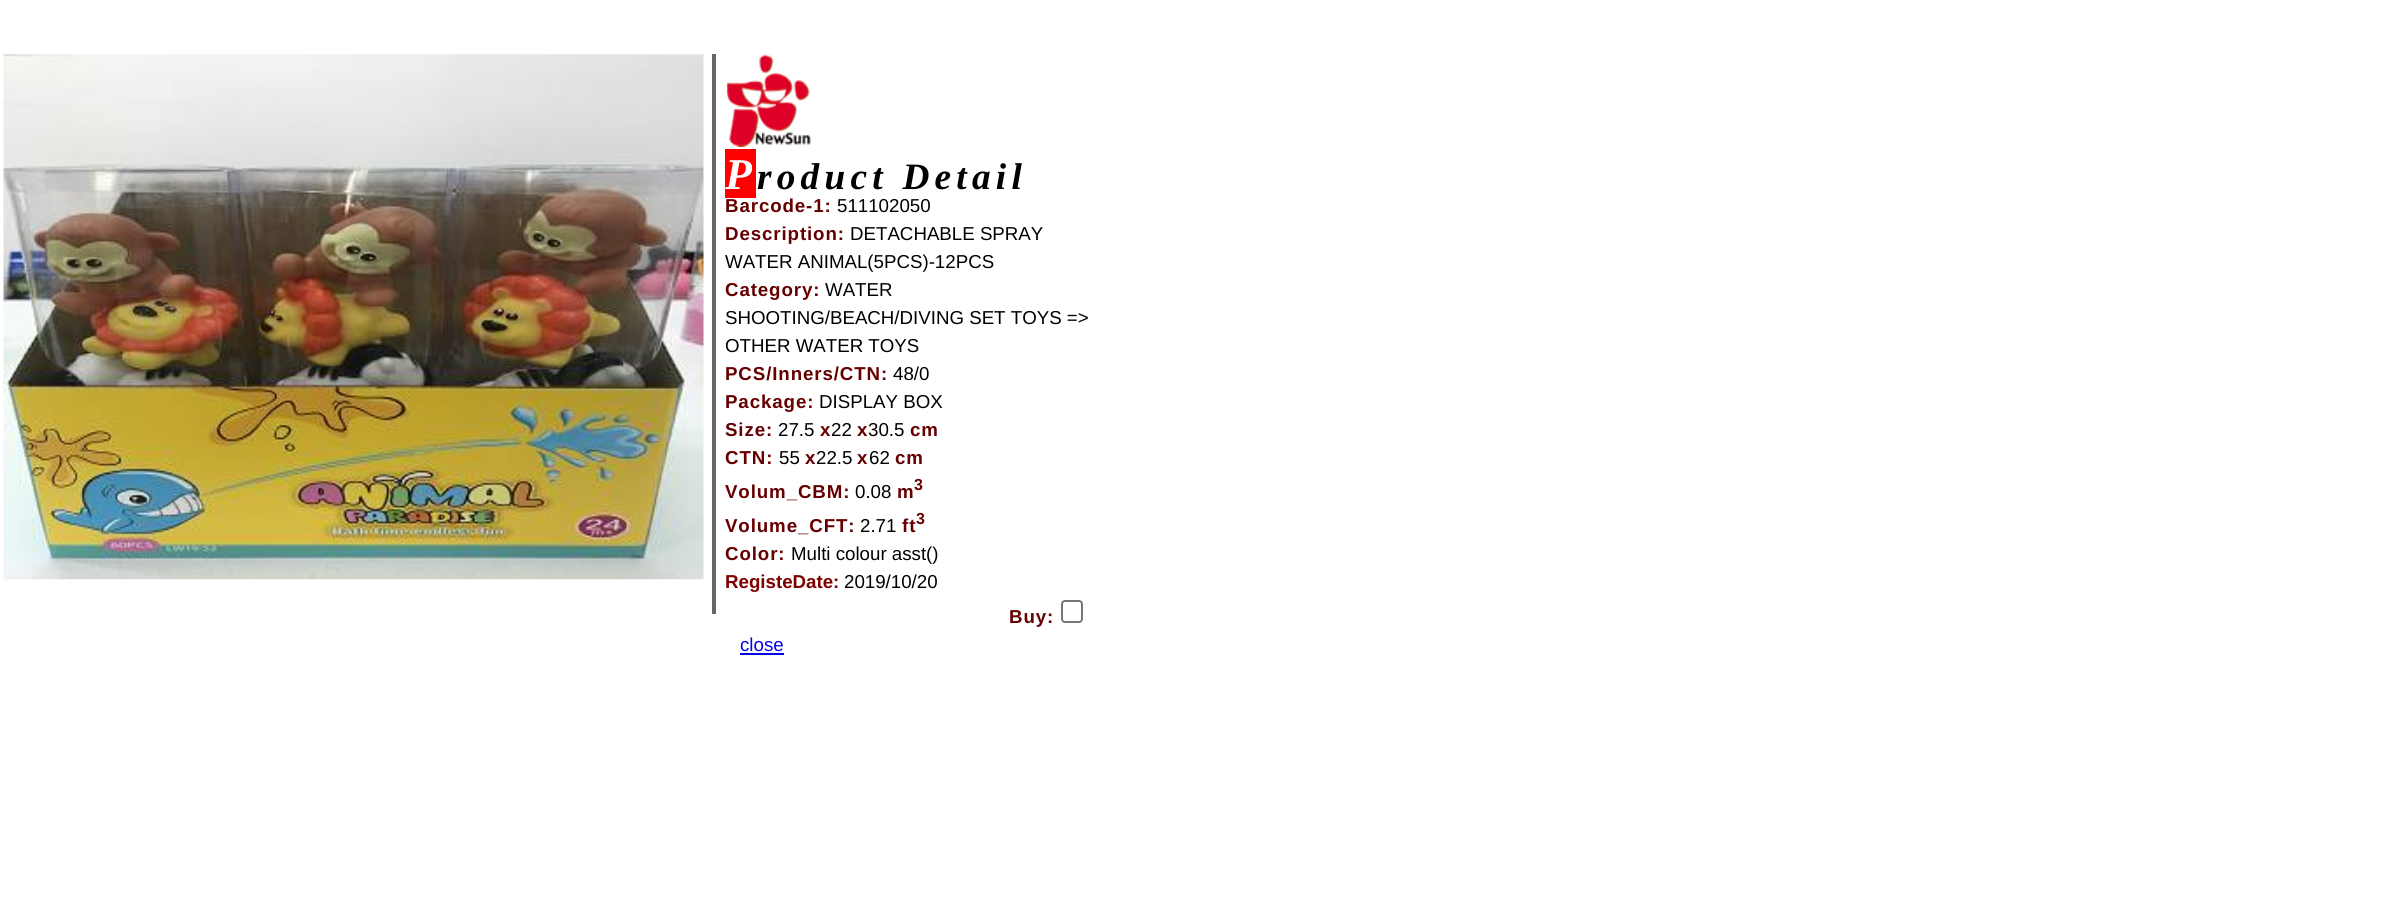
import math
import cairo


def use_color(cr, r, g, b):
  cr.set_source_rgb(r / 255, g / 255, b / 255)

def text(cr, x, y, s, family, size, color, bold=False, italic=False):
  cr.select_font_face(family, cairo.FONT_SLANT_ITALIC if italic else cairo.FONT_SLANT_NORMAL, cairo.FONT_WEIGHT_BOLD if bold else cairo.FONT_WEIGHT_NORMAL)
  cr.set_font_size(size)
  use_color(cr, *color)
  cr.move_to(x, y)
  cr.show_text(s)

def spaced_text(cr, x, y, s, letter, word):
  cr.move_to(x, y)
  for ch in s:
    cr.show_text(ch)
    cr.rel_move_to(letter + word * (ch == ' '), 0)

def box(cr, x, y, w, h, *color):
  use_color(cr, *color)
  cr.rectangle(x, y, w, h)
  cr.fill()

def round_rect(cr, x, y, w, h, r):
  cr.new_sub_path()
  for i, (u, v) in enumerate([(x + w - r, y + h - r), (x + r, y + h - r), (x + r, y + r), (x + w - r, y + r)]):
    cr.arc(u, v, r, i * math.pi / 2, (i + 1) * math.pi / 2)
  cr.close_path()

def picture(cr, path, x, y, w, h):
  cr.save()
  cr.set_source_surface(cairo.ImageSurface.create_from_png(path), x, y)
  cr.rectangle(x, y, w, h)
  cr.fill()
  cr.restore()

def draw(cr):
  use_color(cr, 255, 255, 255)
  cr.paint()
  picture(cr, "img_01.png", 3, 54, 701, 526)
  box(cr, 712, 54, 4, 560, 102, 102, 102)
  picture(cr, "img_02.png", 726, 54, 85, 93)
  box(cr, 725, 149, 31, 49, 255, 0, 0)
  round_rect(cr, 1062, 601, 20, 21, 3)
  use_color(cr, 118, 118, 118)
  cr.stroke()
  box(cr, 740, 653, 44, 2, 0, 0, 238)
  cr.select_font_face("Liberation Serif", cairo.FONT_SLANT_ITALIC, cairo.FONT_WEIGHT_BOLD)
  cr.set_font_size(44)
  use_color(cr, 255, 255, 255)
  spaced_text(cr, 725, 189, "P", 5.25, 0)
  cr.set_font_size(37.25)
  use_color(cr, 0, 0, 0)
  spaced_text(cr, 757, 189, "roduct Detail", 5.25, 0)
  cr.select_font_face("Liberation Sans", cairo.FONT_SLANT_NORMAL, cairo.FONT_WEIGHT_BOLD)
  cr.set_font_size(18.7)
  use_color(cr, 102, 0, 0)
  spaced_text(cr, 725, 212, "Barcode-1:", 0.9, 0)
  text(cr, 837, 212, "511102050", "Liberation Sans", 18.7, (0, 0, 0))
  cr.select_font_face("Liberation Sans", cairo.FONT_SLANT_NORMAL, cairo.FONT_WEIGHT_BOLD)
  use_color(cr, 102, 0, 0)
  spaced_text(cr, 725, 240, "Description:", 0.9, 0)
  text(cr, 850, 240, "DETACHABLE SPRAY", "Liberation Sans", 18.7, (0, 0, 0))
  text(cr, 725, 268, "WATER ANIMAL(5PCS)-12PCS", "Liberation Sans", 18.7, (0, 0, 0))
  cr.select_font_face("Liberation Sans", cairo.FONT_SLANT_NORMAL, cairo.FONT_WEIGHT_BOLD)
  use_color(cr, 102, 0, 0)
  spaced_text(cr, 725, 296, "Category:", 0.9, 0)
  text(cr, 825, 296, "WATER", "Liberation Sans", 18.7, (0, 0, 0))
  text(cr, 725, 324, "SHOOTING/BEACH/DIVING SET TOYS =>", "Liberation Sans", 18.7, (0, 0, 0))
  text(cr, 725, 352, "OTHER WATER TOYS", "Liberation Sans", 18.7, (0, 0, 0))
  cr.select_font_face("Liberation Sans", cairo.FONT_SLANT_NORMAL, cairo.FONT_WEIGHT_BOLD)
  use_color(cr, 102, 0, 0)
  spaced_text(cr, 725, 380, "PCS/Inners/CTN:", 0.9, 0)
  text(cr, 893, 380, "48/0", "Liberation Sans", 18.7, (0, 0, 0))
  cr.select_font_face("Liberation Sans", cairo.FONT_SLANT_NORMAL, cairo.FONT_WEIGHT_BOLD)
  use_color(cr, 102, 0, 0)
  spaced_text(cr, 725, 408, "Package:", 0.9, 0)
  text(cr, 819, 408, "DISPLAY BOX", "Liberation Sans", 18.7, (0, 0, 0))
  cr.select_font_face("Liberation Sans", cairo.FONT_SLANT_NORMAL, cairo.FONT_WEIGHT_BOLD)
  use_color(cr, 102, 0, 0)
  spaced_text(cr, 725, 436, "Size:", 0.9, 0)
  text(cr, 778, 436, "27.5", "Liberation Sans", 18.7, (0, 0, 0))
  cr.select_font_face("Liberation Sans", cairo.FONT_SLANT_NORMAL, cairo.FONT_WEIGHT_BOLD)
  use_color(cr, 102, 0, 0)
  spaced_text(cr, 820, 436, "x", 0.9, 0)
  text(cr, 831, 436, "22", "Liberation Sans", 18.7, (0, 0, 0))
  cr.select_font_face("Liberation Sans", cairo.FONT_SLANT_NORMAL, cairo.FONT_WEIGHT_BOLD)
  use_color(cr, 102, 0, 0)
  spaced_text(cr, 857, 436, "x", 0.9, 0)
  text(cr, 868, 436, "30.5", "Liberation Sans", 18.7, (0, 0, 0))
  cr.select_font_face("Liberation Sans", cairo.FONT_SLANT_NORMAL, cairo.FONT_WEIGHT_BOLD)
  use_color(cr, 102, 0, 0)
  spaced_text(cr, 910, 436, "cm", 0.9, 0)
  spaced_text(cr, 725, 464, "CTN:", 0.9, 0)
  text(cr, 779, 464, "55", "Liberation Sans", 18.7, (0, 0, 0))
  cr.select_font_face("Liberation Sans", cairo.FONT_SLANT_NORMAL, cairo.FONT_WEIGHT_BOLD)
  use_color(cr, 102, 0, 0)
  spaced_text(cr, 805, 464, "x", 0.9, 0)
  text(cr, 816, 464, "22.5", "Liberation Sans", 18.7, (0, 0, 0))
  cr.select_font_face("Liberation Sans", cairo.FONT_SLANT_NORMAL, cairo.FONT_WEIGHT_BOLD)
  use_color(cr, 102, 0, 0)
  spaced_text(cr, 857, 464, "x", 0.9, 0)
  text(cr, 869, 464, "62", "Liberation Sans", 18.7, (0, 0, 0))
  cr.select_font_face("Liberation Sans", cairo.FONT_SLANT_NORMAL, cairo.FONT_WEIGHT_BOLD)
  use_color(cr, 102, 0, 0)
  spaced_text(cr, 895, 464, "cm", 0.9, 0)
  spaced_text(cr, 725, 498, "Volum_CBM:", 0.9, 0)
  text(cr, 855, 498, "0.08", "Liberation Sans", 18.7, (0, 0, 0))
  cr.select_font_face("Liberation Sans", cairo.FONT_SLANT_NORMAL, cairo.FONT_WEIGHT_BOLD)
  use_color(cr, 102, 0, 0)
  spaced_text(cr, 897, 498, "m", 0.9, 0)
  cr.set_font_size(16)
  spaced_text(cr, 914, 490, "3", 0.9, 0)
  cr.set_font_size(18.7)
  spaced_text(cr, 725, 532, "Volume_CFT:", 0.9, 0)
  text(cr, 860, 532, "2.71", "Liberation Sans", 18.7, (0, 0, 0))
  cr.select_font_face("Liberation Sans", cairo.FONT_SLANT_NORMAL, cairo.FONT_WEIGHT_BOLD)
  use_color(cr, 102, 0, 0)
  spaced_text(cr, 902, 532, "ft", 0.9, 0)
  cr.set_font_size(16)
  spaced_text(cr, 916, 524, "3", 0.9, 0)
  cr.set_font_size(18.7)
  spaced_text(cr, 725, 560, "Color:", 0.9, 0)
  text(cr, 791, 560, "Multi colour asst()", "Liberation Sans", 18.7, (0, 0, 0))
  text(cr, 725, 588, "RegisteDate:", "Liberation Sans", 18.7, (128, 0, 0), bold=True)
  text(cr, 844, 588, "2019/10/20", "Liberation Sans", 18.7, (0, 0, 0))
  cr.select_font_face("Liberation Sans", cairo.FONT_SLANT_NORMAL, cairo.FONT_WEIGHT_BOLD)
  use_color(cr, 102, 0, 0)
  spaced_text(cr, 1009, 623, "Buy:", 0.9, 0)
  text(cr, 740, 651, "close", "Liberation Sans", 18.7, (0, 0, 238))


surface = cairo.ImageSurface(cairo.FORMAT_RGB24, 2386, 920)
cr = cairo.Context(surface)
options = cairo.FontOptions()
options.set_hint_metrics(cairo.HINT_METRICS_OFF)
options.set_hint_style(cairo.HINT_STYLE_NONE)
cr.set_font_options(options)
cr.set_miter_limit(4)
draw(cr)
surface.write_to_png("out.png")
